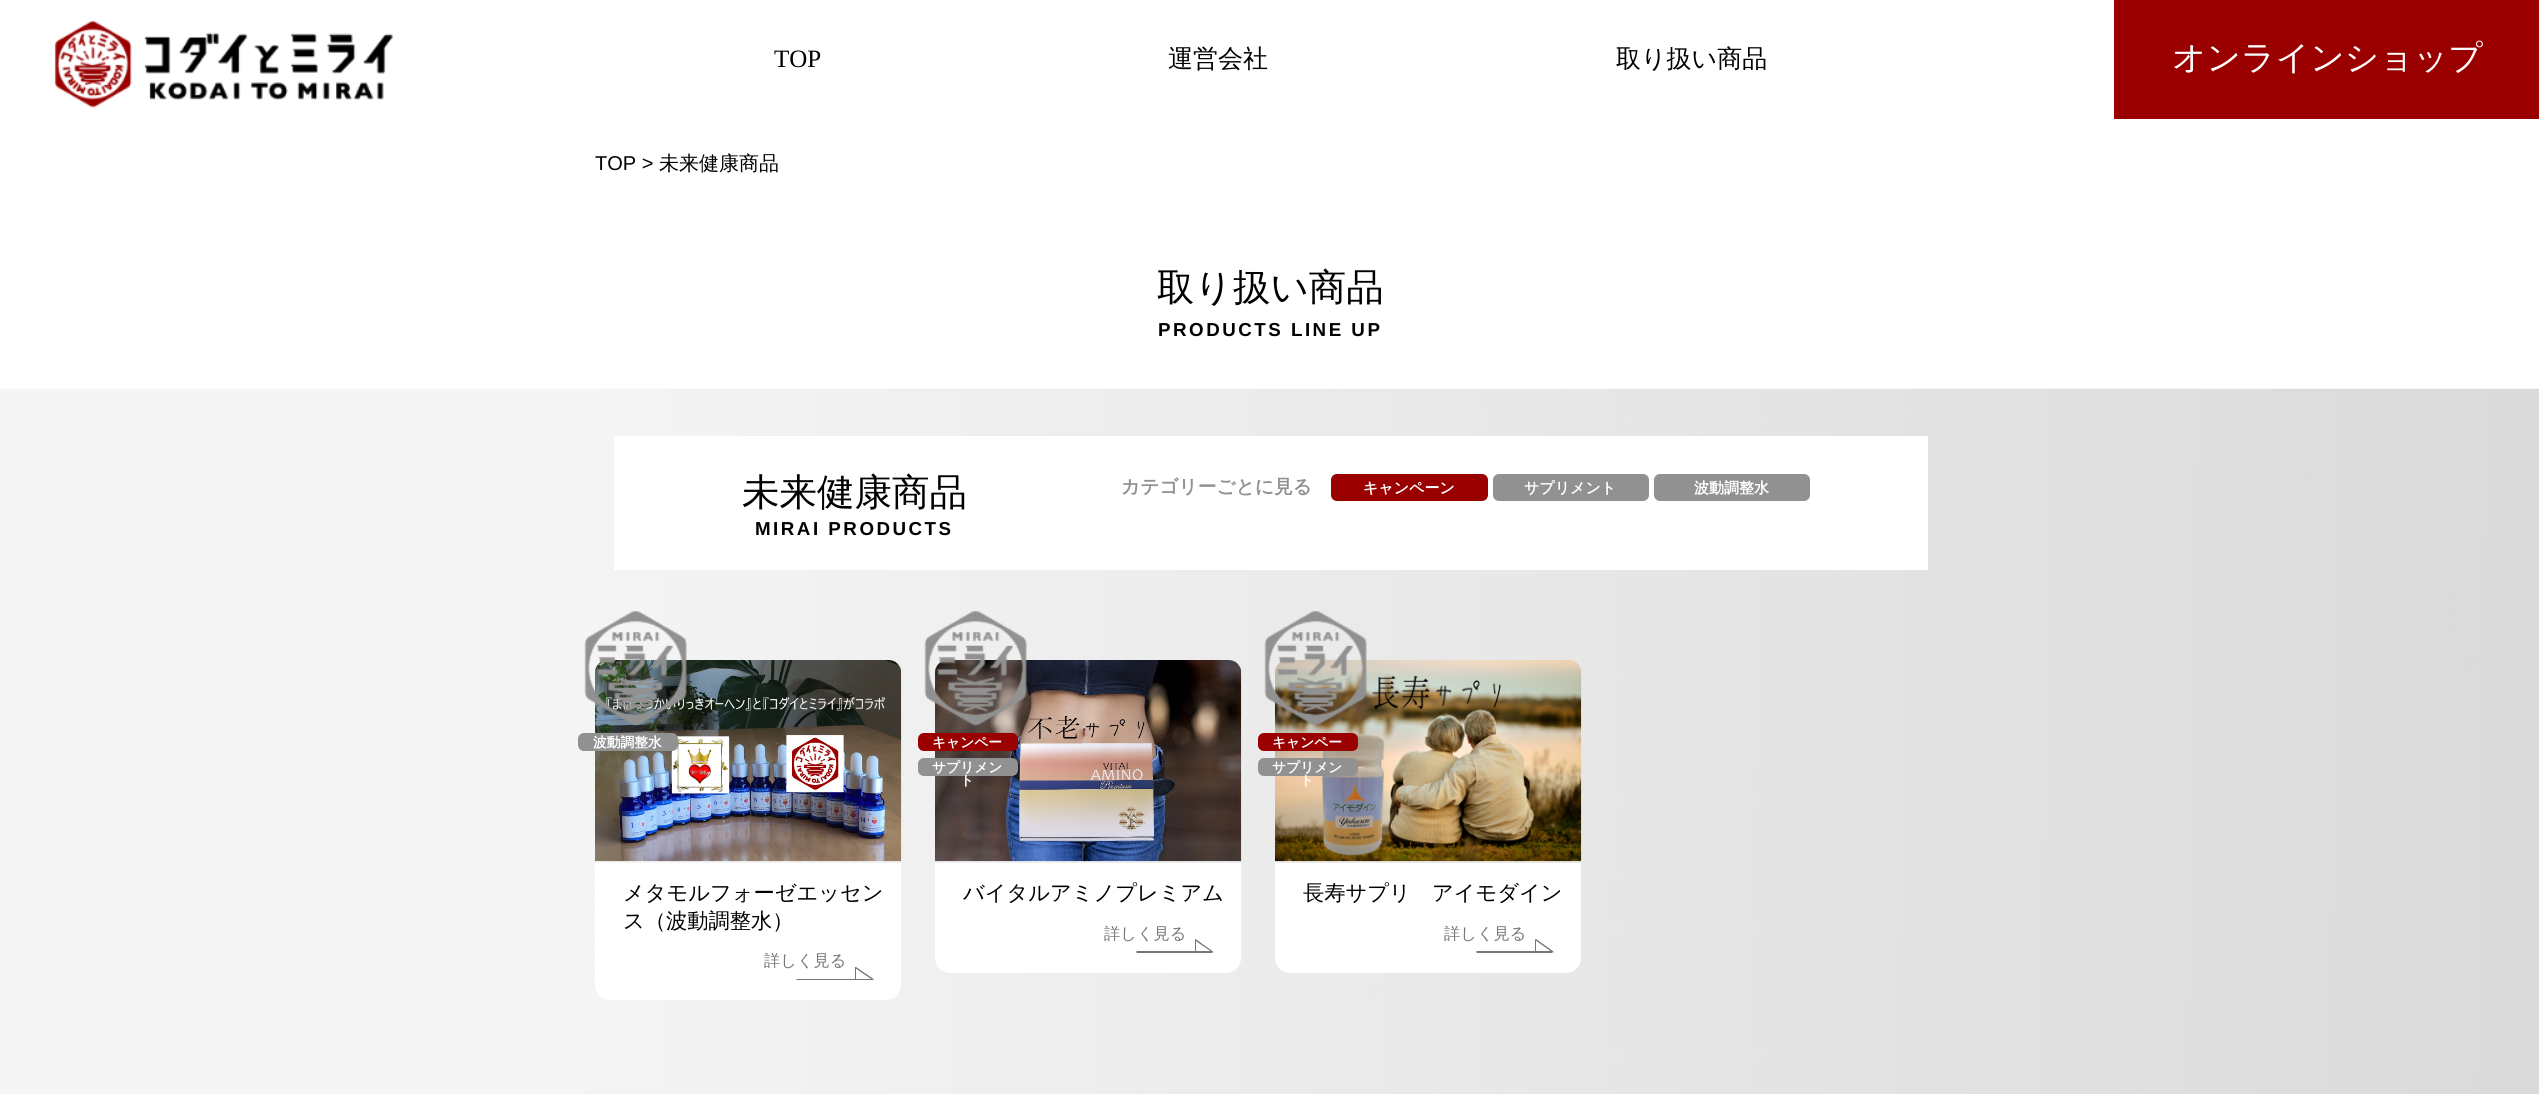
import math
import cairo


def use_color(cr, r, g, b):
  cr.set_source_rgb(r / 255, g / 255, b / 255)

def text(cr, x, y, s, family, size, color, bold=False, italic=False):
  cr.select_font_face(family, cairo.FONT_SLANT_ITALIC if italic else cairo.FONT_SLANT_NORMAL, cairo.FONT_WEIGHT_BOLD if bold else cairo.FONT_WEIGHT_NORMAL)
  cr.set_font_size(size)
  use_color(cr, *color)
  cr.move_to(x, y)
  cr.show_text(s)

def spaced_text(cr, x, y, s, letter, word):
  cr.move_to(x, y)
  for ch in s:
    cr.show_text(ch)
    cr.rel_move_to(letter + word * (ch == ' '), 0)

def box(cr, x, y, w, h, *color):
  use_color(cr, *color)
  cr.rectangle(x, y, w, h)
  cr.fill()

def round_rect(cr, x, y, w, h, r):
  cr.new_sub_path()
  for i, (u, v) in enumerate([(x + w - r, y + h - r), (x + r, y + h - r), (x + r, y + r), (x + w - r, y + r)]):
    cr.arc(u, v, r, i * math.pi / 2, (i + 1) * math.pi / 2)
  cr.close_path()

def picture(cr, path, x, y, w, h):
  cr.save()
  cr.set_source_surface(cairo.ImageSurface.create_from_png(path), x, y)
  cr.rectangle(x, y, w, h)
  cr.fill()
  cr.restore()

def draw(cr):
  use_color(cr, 255, 255, 255)
  cr.paint()
  picture(cr, "img_01.png", 54, 21, 340, 87)
  box(cr, 2114, 0, 425, 119, 154, 0, 0)
  picture(cr, "img_02.png", 0, 388, 2539, 706)
  box(cr, 614, 436, 1314, 134, 255, 255, 255)
  use_color(cr, 154, 0, 0)
  round_rect(cr, 1331, 474, 157, 27, 6)
  cr.fill()
  use_color(cr, 145, 145, 145)
  round_rect(cr, 1493, 474, 156, 27, 6)
  cr.fill()
  round_rect(cr, 1654, 474, 156, 27, 6)
  cr.fill()
  picture(cr, "img_04.png", 595, 660, 307, 202)
  picture(cr, "img_03.png", 584, 611, 103, 115)
  round_rect(cr, 578, 733, 100, 18, 6)
  cr.fill()
  use_color(cr, 255, 255, 255)
  cr.new_path()
  cr.move_to(595, 863)
  cr.line_to(901, 863)
  cr.line_to(901, 985)
  cr.curve_to(901, 993.5, 894.5, 1000, 886, 1000)
  cr.line_to(610, 1000)
  cr.curve_to(601.5, 1000, 595, 993.5, 595, 985)
  cr.close_path()
  cr.fill()
  use_color(cr, 118, 118, 118)
  round_rect(cr, 855, 968, 1, 12, 0.5)
  cr.fill()
  cr.new_path()
  cr.move_to(873.5, 980)
  cr.line_to(872.5, 980)
  cr.line_to(855, 968)
  cr.line_to(855, 967)
  cr.line_to(856, 967)
  cr.line_to(873.5, 979)
  cr.close_path()
  cr.fill()
  cr.new_path()
  cr.move_to(872, 980)
  cr.line_to(797, 980)
  cr.line_to(796, 980)
  cr.line_to(797, 979)
  cr.line_to(872, 979)
  cr.close_path()
  cr.fill()
  picture(cr, "img_06.png", 935, 660, 307, 202)
  picture(cr, "img_05.png", 924, 611, 103, 115)
  use_color(cr, 154, 0, 0)
  round_rect(cr, 918, 733, 100, 18, 6)
  cr.fill()
  use_color(cr, 145, 145, 145)
  round_rect(cr, 918, 758, 100, 18, 6)
  cr.fill()
  use_color(cr, 255, 255, 255)
  cr.new_path()
  cr.move_to(935, 863)
  cr.line_to(1241, 863)
  cr.line_to(1241, 958)
  cr.curve_to(1241, 966.5, 1234.5, 973, 1226, 973)
  cr.line_to(950, 973)
  cr.curve_to(941.5, 973, 935, 966.5, 935, 958)
  cr.close_path()
  cr.fill()
  use_color(cr, 118, 118, 118)
  round_rect(cr, 1195, 940, 1, 13, 0.5)
  cr.fill()
  cr.new_path()
  cr.move_to(1213.5, 952.5)
  cr.line_to(1212.5, 952.5)
  cr.line_to(1195, 940.5)
  cr.line_to(1195, 939.5)
  cr.line_to(1195.5, 939)
  cr.line_to(1213, 951.5)
  cr.close_path()
  cr.fill()
  cr.new_path()
  cr.move_to(1212, 952)
  cr.line_to(1212, 953)
  cr.line_to(1137, 953)
  cr.line_to(1136, 952)
  cr.line_to(1137, 951)
  cr.line_to(1212, 951)
  cr.close_path()
  cr.fill()
  picture(cr, "img_08.png", 1275, 660, 307, 202)
  picture(cr, "img_07.png", 1264, 611, 103, 115)
  use_color(cr, 154, 0, 0)
  round_rect(cr, 1258, 733, 100, 18, 6)
  cr.fill()
  use_color(cr, 145, 145, 145)
  round_rect(cr, 1258, 758, 100, 18, 6)
  cr.fill()
  use_color(cr, 255, 255, 255)
  cr.new_path()
  cr.move_to(1275, 863)
  cr.line_to(1581, 863)
  cr.line_to(1581, 958)
  cr.curve_to(1581, 966.5, 1574.5, 973, 1566, 973)
  cr.line_to(1290, 973)
  cr.curve_to(1281.5, 973, 1275, 966.5, 1275, 958)
  cr.close_path()
  cr.fill()
  use_color(cr, 118, 118, 118)
  round_rect(cr, 1535, 940, 1, 13, 0.5)
  cr.fill()
  cr.new_path()
  cr.move_to(1553.5, 952.5)
  cr.line_to(1552.5, 952.5)
  cr.line_to(1535, 940)
  cr.line_to(1535, 939.5)
  cr.line_to(1536, 939)
  cr.line_to(1553.5, 951.5)
  cr.close_path()
  cr.fill()
  cr.new_path()
  cr.move_to(1552, 952)
  cr.line_to(1552, 953)
  cr.line_to(1477, 953)
  cr.line_to(1476, 952)
  cr.line_to(1477, 951)
  cr.line_to(1552, 951)
  cr.close_path()
  cr.fill()
  text(cr, 774, 67, "TOP", "Liberation Serif", 25, (0, 0, 0))
  text(cr, 1168, 67, "運営会社", "WenQuanYi Zen Hei Medium", 25, (0, 0, 0))
  text(cr, 1616, 67, "取り扱い商品", "WenQuanYi Zen Hei Medium", 25, (0, 0, 0))
  text(cr, 2172, 69, "オンラインショップ", "WenQuanYi Zen Hei Medium", 33.75, (255, 255, 255))
  text(cr, 595, 170, "TOP >", "Liberation Sans", 20, (0, 0, 0))
  text(cr, 659, 170, "未来健康商品", "WenQuanYi Zen Hei Medium", 20, (0, 0, 0))
  text(cr, 1157, 300, "取り扱い商品", "WenQuanYi Zen Hei Medium", 37.5, (0, 0, 0))
  cr.select_font_face("Liberation Sans", cairo.FONT_SLANT_NORMAL, cairo.FONT_WEIGHT_BOLD)
  cr.set_font_size(18.75)
  spaced_text(cr, 1158, 336, "PRODUCTS LINE UP", 2.5, 0)
  text(cr, 742, 505, "未来健康商品", "WenQuanYi Zen Hei Medium", 37.5, (0, 0, 0))
  cr.select_font_face("Liberation Sans", cairo.FONT_SLANT_NORMAL, cairo.FONT_WEIGHT_BOLD)
  cr.set_font_size(18.75)
  spaced_text(cr, 755, 535, "MIRAI PRODUCTS", 2.5, 0)
  text(cr, 1121, 493, "カテゴリーごとに見る", "WenQuanYi Zen Hei", 18.75, (145, 145, 145), bold=True)
  text(cr, 1363, 493, "キャンペーン", "WenQuanYi Zen Hei", 15, (255, 255, 255), bold=True)
  text(cr, 1524, 493, "サプリメント", "WenQuanYi Zen Hei", 15, (255, 255, 255), bold=True)
  text(cr, 1694, 493, "波動調整水", "WenQuanYi Zen Hei", 15, (255, 255, 255), bold=True)
  text(cr, 593, 747, "波動調整水", "WenQuanYi Zen Hei", 13.75, (255, 255, 255), bold=True)
  text(cr, 623, 900, "メタモルフォーゼエッセン", "WenQuanYi Zen Hei Medium", 21.25, (0, 0, 0))
  text(cr, 623, 928, "ス（波動調整水）", "WenQuanYi Zen Hei Medium", 21.25, (0, 0, 0))
  text(cr, 764, 966, "詳しく見る", "WenQuanYi Zen Hei Medium", 16.25, (118, 118, 118))
  text(cr, 932, 747, "キャンペー", "WenQuanYi Zen Hei", 13.75, (255, 255, 255), bold=True)
  text(cr, 932, 772, "サプリメン", "WenQuanYi Zen Hei", 13.75, (255, 255, 255), bold=True)
  text(cr, 960, 785, "ト", "WenQuanYi Zen Hei", 13.75, (255, 255, 255), bold=True)
  text(cr, 963, 900, "バイタルアミノプレミアム", "WenQuanYi Zen Hei Medium", 21.25, (0, 0, 0))
  text(cr, 1104, 939, "詳しく見る", "WenQuanYi Zen Hei Medium", 16.25, (118, 118, 118))
  text(cr, 1272, 747, "キャンペー", "WenQuanYi Zen Hei", 13.75, (255, 255, 255), bold=True)
  text(cr, 1272, 772, "サプリメン", "WenQuanYi Zen Hei", 13.75, (255, 255, 255), bold=True)
  text(cr, 1300, 785, "ト", "WenQuanYi Zen Hei", 13.75, (255, 255, 255), bold=True)
  text(cr, 1303, 900, "長寿サプリ　アイモダイン", "WenQuanYi Zen Hei Medium", 21.25, (0, 0, 0))
  text(cr, 1444, 939, "詳しく見る", "WenQuanYi Zen Hei Medium", 16.25, (118, 118, 118))


surface = cairo.ImageSurface(cairo.FORMAT_RGB24, 2539, 1094)
cr = cairo.Context(surface)
options = cairo.FontOptions()
options.set_hint_metrics(cairo.HINT_METRICS_OFF)
options.set_hint_style(cairo.HINT_STYLE_NONE)
cr.set_font_options(options)
cr.set_miter_limit(4)
draw(cr)
surface.write_to_png("out.png")
